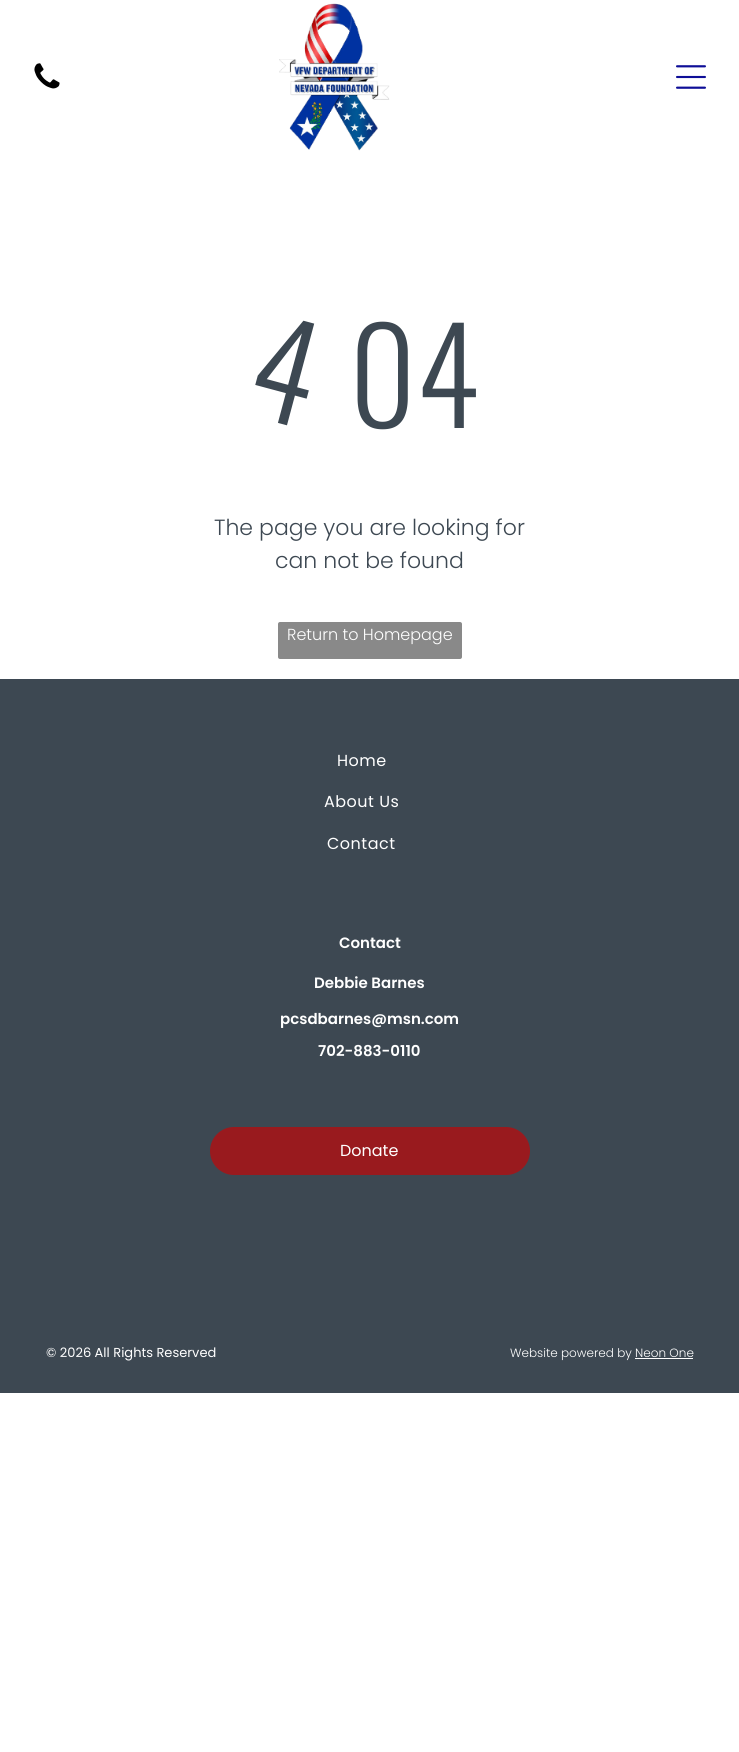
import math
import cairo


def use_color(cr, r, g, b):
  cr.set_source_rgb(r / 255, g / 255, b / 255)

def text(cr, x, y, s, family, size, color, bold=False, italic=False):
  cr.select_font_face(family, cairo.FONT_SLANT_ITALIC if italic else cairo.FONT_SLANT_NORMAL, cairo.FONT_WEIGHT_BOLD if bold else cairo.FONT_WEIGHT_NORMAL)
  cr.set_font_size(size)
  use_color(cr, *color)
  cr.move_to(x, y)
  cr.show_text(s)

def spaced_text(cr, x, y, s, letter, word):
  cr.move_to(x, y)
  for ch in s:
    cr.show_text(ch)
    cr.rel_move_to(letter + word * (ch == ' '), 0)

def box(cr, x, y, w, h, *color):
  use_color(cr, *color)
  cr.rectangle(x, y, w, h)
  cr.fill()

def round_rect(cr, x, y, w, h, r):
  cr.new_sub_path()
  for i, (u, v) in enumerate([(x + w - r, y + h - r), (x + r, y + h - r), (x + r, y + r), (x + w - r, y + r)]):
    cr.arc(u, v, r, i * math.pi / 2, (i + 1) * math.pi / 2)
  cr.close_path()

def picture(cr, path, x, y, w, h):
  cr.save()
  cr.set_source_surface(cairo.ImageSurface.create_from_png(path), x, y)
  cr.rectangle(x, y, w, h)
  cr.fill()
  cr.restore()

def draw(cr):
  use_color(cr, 255, 255, 255)
  cr.paint()
  picture(cr, "img_01.png", 34, 63, 26, 26)
  picture(cr, "img_02.png", 279, 3, 111, 148)
  picture(cr, "img_03.png", 676, 65, 30, 24)
  use_color(cr, 137, 137, 137)
  round_rect(cr, 278, 622, 184, 37, 2)
  cr.fill()
  box(cr, 0, 679, 739, 714, 61, 72, 82)
  use_color(cr, 153, 26, 30)
  round_rect(cr, 210, 1127, 320, 48, 24)
  cr.fill()
  box(cr, 635, 1358, 58, 1, 255, 255, 255)
  cr.save()
  cr.translate(241, 413)
  cr.rotate(15 * math.pi / 180)
  text(cr, 0, 0, "4", "Oswald Light", 130, (61, 72, 82))
  cr.restore()
  text(cr, 349, 428, "04", "Oswald Light", 130, (61, 72, 82))
  text(cr, 214, 535, "The page you are looking for", "Poppins Light", 22, (61, 72, 82))
  text(cr, 275, 568, "can not be found", "Poppins Light", 22, (61, 72, 82))
  text(cr, 287, 640, "Return to Homepage", "Poppins Light", 16, (255, 255, 255))
  cr.select_font_face("Poppins")
  spaced_text(cr, 337, 766, "Home", 0.5, 0)
  spaced_text(cr, 324, 807, "About Us", 0.5, 0)
  spaced_text(cr, 327, 849, "Contact", 0.5, 0)
  text(cr, 339, 948, "Contact", "Poppins SemiBold", 15, (255, 255, 255))
  text(cr, 314, 988, "Debbie Barnes", "Poppins SemiBold", 15, (255, 255, 255))
  text(cr, 280, 1024, "pcsdbarnes@msn.com", "Poppins SemiBold", 15, (255, 255, 255))
  text(cr, 318, 1056, "702-883-0110", "Poppins SemiBold", 15, (255, 255, 255))
  text(cr, 340, 1156, "Donate", "Poppins", 16, (255, 255, 255))
  text(cr, 46, 1357, "© 2026 All Rights Reserved", "Poppins", 13, (255, 255, 255))
  text(cr, 510, 1357, "Website powered by Neon One", "Poppins Light", 12, (255, 255, 255))


surface = cairo.ImageSurface(cairo.FORMAT_RGB24, 739, 1752)
cr = cairo.Context(surface)
options = cairo.FontOptions()
options.set_hint_metrics(cairo.HINT_METRICS_OFF)
options.set_hint_style(cairo.HINT_STYLE_NONE)
cr.set_font_options(options)
cr.set_miter_limit(4)
draw(cr)
surface.write_to_png("out.png")
